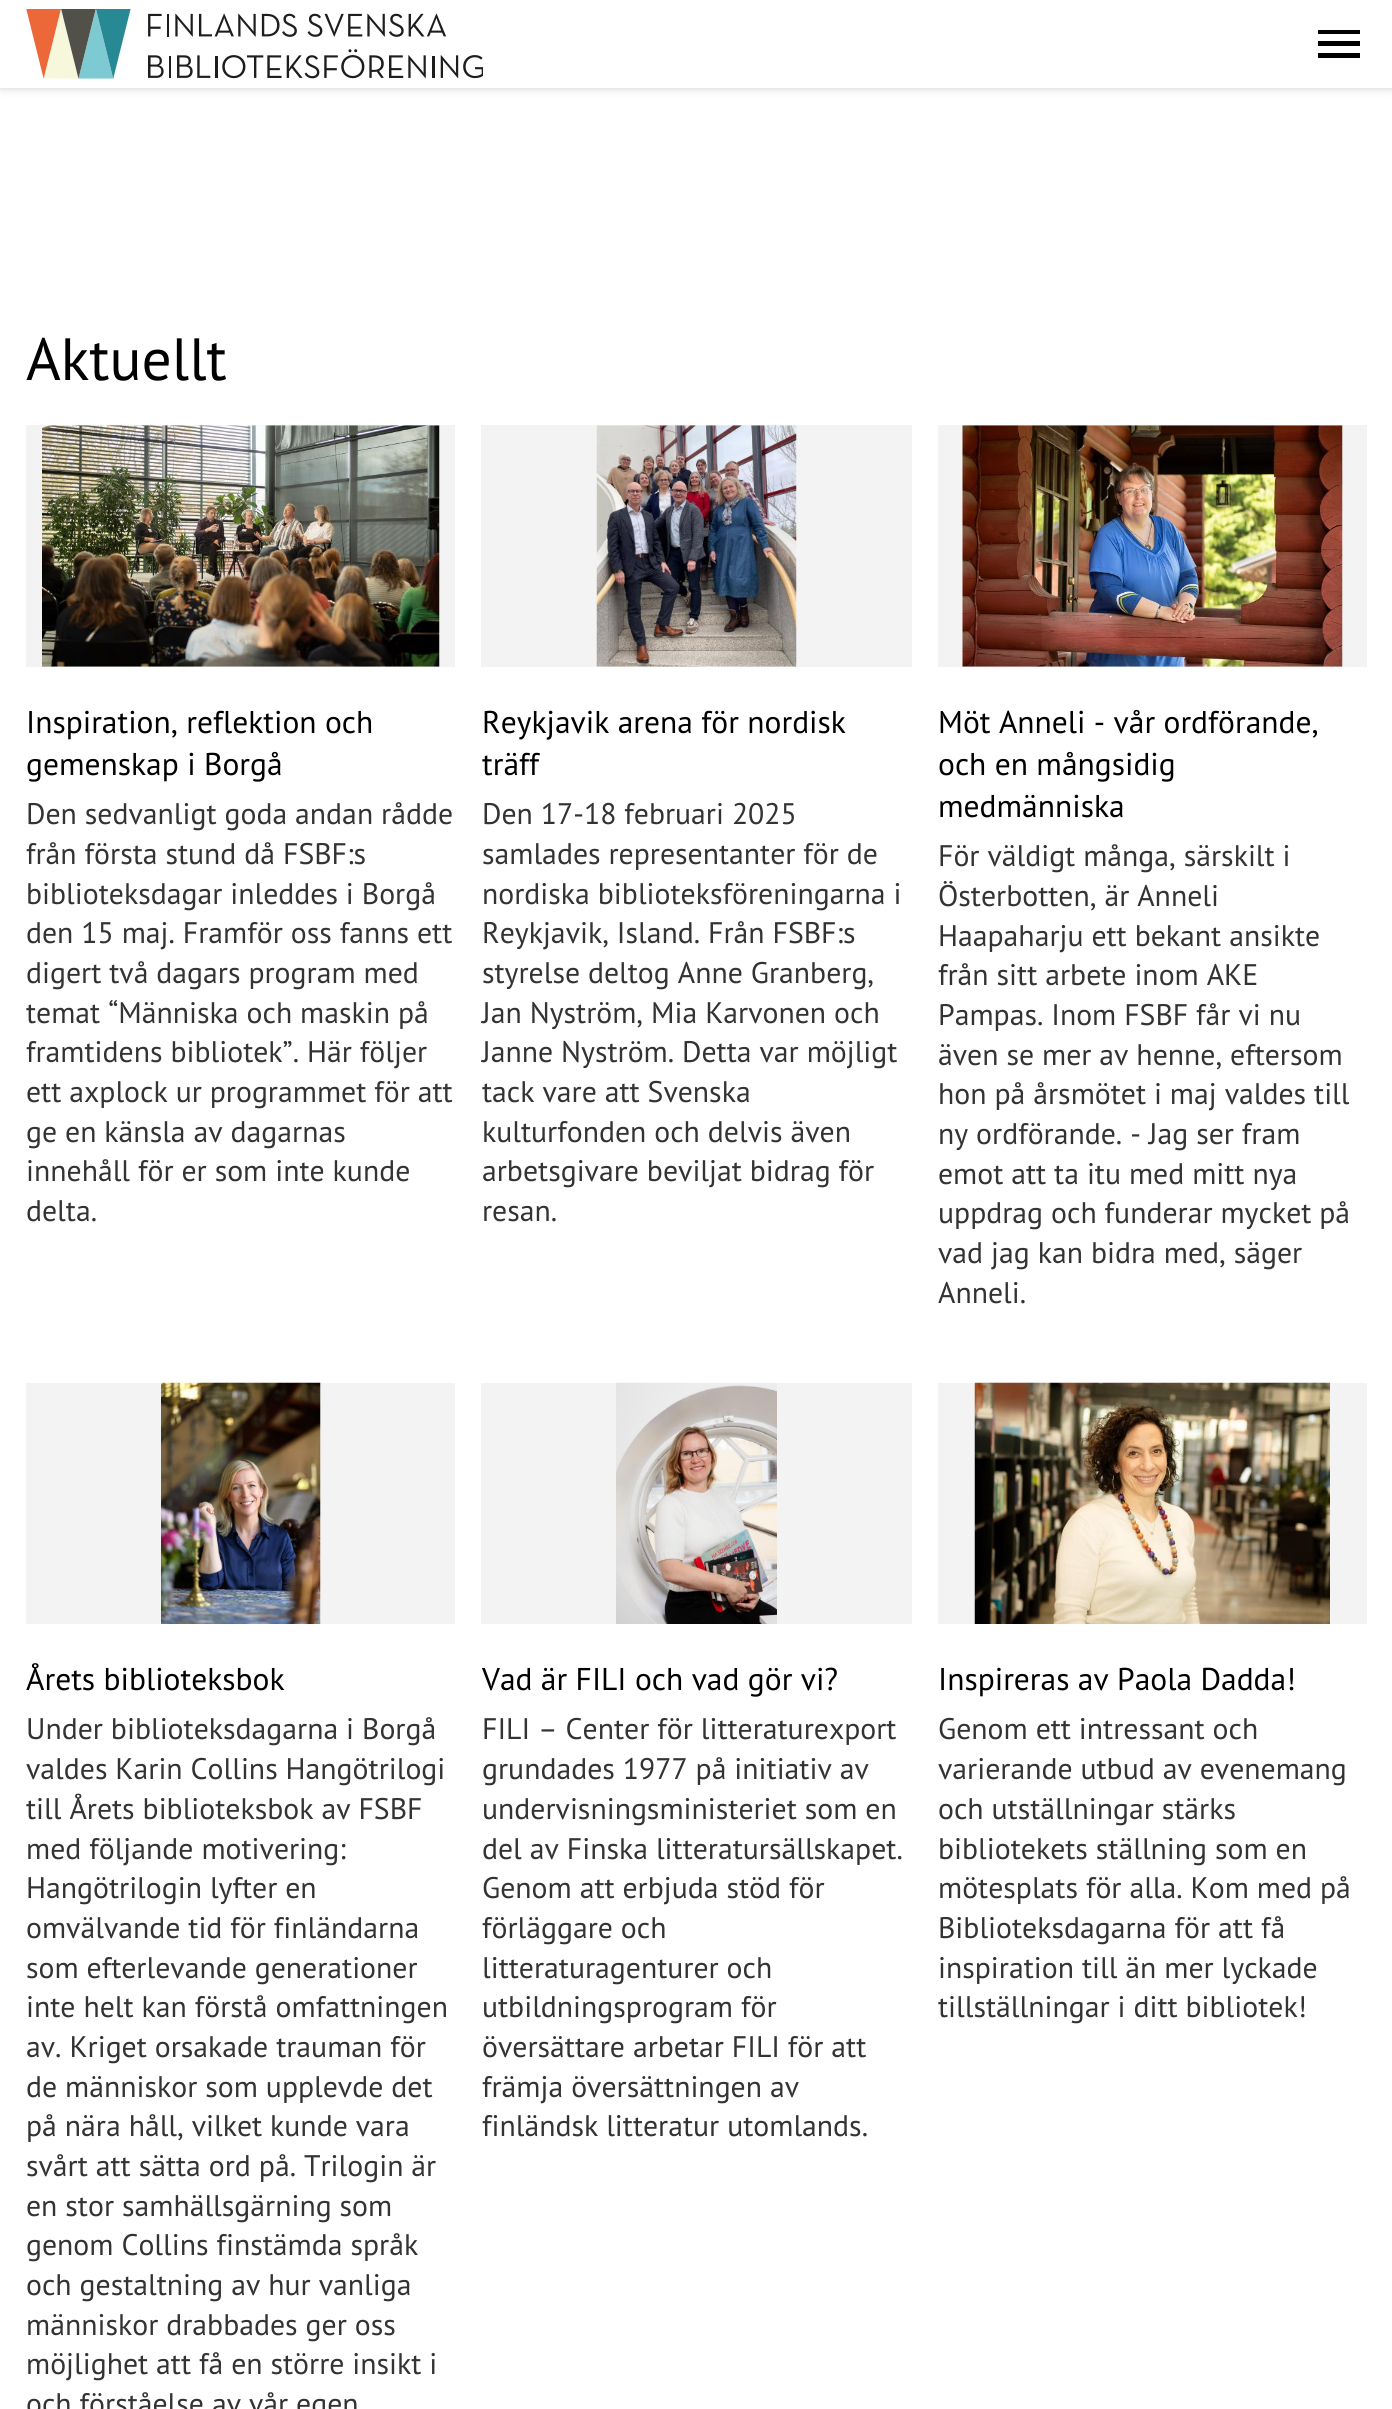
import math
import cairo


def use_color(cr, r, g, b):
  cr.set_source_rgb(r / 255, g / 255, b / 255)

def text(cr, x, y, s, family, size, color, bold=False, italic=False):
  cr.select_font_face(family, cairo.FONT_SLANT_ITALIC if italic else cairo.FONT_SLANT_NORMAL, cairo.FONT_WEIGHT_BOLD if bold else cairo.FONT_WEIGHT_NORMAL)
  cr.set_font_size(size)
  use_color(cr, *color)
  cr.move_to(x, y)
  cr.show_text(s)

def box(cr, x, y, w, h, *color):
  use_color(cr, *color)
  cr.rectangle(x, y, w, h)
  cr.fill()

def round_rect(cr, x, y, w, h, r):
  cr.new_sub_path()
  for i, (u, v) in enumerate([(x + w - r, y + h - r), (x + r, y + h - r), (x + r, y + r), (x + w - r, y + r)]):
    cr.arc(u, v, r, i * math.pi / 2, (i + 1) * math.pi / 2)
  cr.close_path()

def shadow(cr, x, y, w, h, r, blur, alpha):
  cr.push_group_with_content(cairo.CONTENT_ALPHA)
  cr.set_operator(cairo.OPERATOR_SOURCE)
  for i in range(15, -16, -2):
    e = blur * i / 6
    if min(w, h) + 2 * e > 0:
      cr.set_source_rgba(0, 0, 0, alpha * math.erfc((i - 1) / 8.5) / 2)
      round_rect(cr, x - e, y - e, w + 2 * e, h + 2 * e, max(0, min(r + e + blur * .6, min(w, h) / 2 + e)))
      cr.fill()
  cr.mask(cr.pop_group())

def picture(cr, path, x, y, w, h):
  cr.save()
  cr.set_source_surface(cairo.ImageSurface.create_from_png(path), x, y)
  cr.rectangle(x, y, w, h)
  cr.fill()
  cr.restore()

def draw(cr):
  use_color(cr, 255, 255, 255)
  cr.paint()
  use_color(cr, 0, 0, 0)
  shadow(cr, 0, 0, 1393, 88, 0, 4.5, 0.2)
  box(cr, 0, 0, 1392, 88, 255, 255, 255)
  picture(cr, "img_01.png", 26, 9, 457, 70)
  use_color(cr, 0, 0, 0)
  cr.new_path()
  cr.move_to(1318, 30)
  cr.line_to(1360, 30)
  cr.line_to(1360, 34)
  cr.line_to(1318, 34)
  cr.close_path()
  cr.move_to(1318, 46)
  cr.line_to(1318, 41)
  cr.line_to(1360, 41)
  cr.line_to(1360, 46)
  cr.close_path()
  cr.move_to(1318, 58)
  cr.line_to(1318, 53)
  cr.line_to(1360, 53)
  cr.line_to(1360, 58)
  cr.close_path()
  cr.fill()
  box(cr, 26, 425, 429, 242, 243, 243, 243)
  picture(cr, "img_02.png", 42, 425, 398, 242)
  box(cr, 481, 425, 431, 242, 243, 243, 243)
  picture(cr, "img_03.png", 596, 425, 201, 242)
  box(cr, 938, 425, 429, 242, 243, 243, 243)
  picture(cr, "img_04.png", 962, 425, 381, 242)
  box(cr, 26, 1383, 429, 241, 243, 243, 243)
  picture(cr, "img_05.png", 161, 1382, 160, 242)
  box(cr, 481, 1383, 431, 241, 243, 243, 243)
  picture(cr, "img_06.png", 616, 1382, 161, 242)
  box(cr, 938, 1383, 429, 241, 243, 243, 243)
  picture(cr, "img_07.png", 974, 1382, 356, 242)
  text(cr, 26, 380, "Aktuellt", "PT Sans", 59.5, (0, 0, 0))
  text(cr, 26, 733, "Inspiration, reflektion och", "PT Sans", 31.5, (0, 0, 0))
  text(cr, 26, 775, "gemenskap i Borgå", "PT Sans", 31.5, (0, 0, 0))
  text(cr, 26, 824, "Den sedvanligt goda andan rådde", "PT Sans", 29.75, (51, 51, 51))
  text(cr, 26, 864, "från första stund då FSBF:s", "PT Sans", 29.75, (51, 51, 51))
  text(cr, 26, 904, "biblioteksdagar inleddes i Borgå", "PT Sans", 29.75, (51, 51, 51))
  text(cr, 26, 943, "den 15 maj. Framför oss fanns ett", "PT Sans", 29.75, (51, 51, 51))
  text(cr, 26, 983, "digert två dagars program med", "PT Sans", 29.75, (51, 51, 51))
  text(cr, 26, 1023, "temat “Människa och maskin på", "PT Sans", 29.75, (51, 51, 51))
  text(cr, 26, 1062, "framtidens bibliotek”. Här följer", "PT Sans", 29.75, (51, 51, 51))
  text(cr, 26, 1102, "ett axplock ur programmet för att", "PT Sans", 29.75, (51, 51, 51))
  text(cr, 26, 1142, "ge en känsla av dagarnas", "PT Sans", 29.75, (51, 51, 51))
  text(cr, 26, 1181, "innehåll för er som inte kunde", "PT Sans", 29.75, (51, 51, 51))
  text(cr, 26, 1221, "delta.", "PT Sans", 29.75, (51, 51, 51))
  text(cr, 482, 733, "Reykjavik arena för nordisk", "PT Sans", 31.5, (0, 0, 0))
  text(cr, 482, 775, "träff", "PT Sans", 31.5, (0, 0, 0))
  text(cr, 482, 824, "Den 17-18 februari 2025", "PT Sans", 29.75, (51, 51, 51))
  text(cr, 482, 864, "samlades representanter för de", "PT Sans", 29.75, (51, 51, 51))
  text(cr, 482, 904, "nordiska biblioteksföreningarna i", "PT Sans", 29.75, (51, 51, 51))
  text(cr, 482, 943, "Reykjavik, Island. Från FSBF:s", "PT Sans", 29.75, (51, 51, 51))
  text(cr, 482, 983, "styrelse deltog Anne Granberg,", "PT Sans", 29.75, (51, 51, 51))
  text(cr, 482, 1023, "Jan Nyström, Mia Karvonen och", "PT Sans", 29.75, (51, 51, 51))
  text(cr, 482, 1062, "Janne Nyström. Detta var möjligt", "PT Sans", 29.75, (51, 51, 51))
  text(cr, 482, 1102, "tack vare att Svenska", "PT Sans", 29.75, (51, 51, 51))
  text(cr, 482, 1142, "kulturfonden och delvis även", "PT Sans", 29.75, (51, 51, 51))
  text(cr, 482, 1181, "arbetsgivare beviljat bidrag för", "PT Sans", 29.75, (51, 51, 51))
  text(cr, 482, 1221, "resan.", "PT Sans", 29.75, (51, 51, 51))
  text(cr, 938, 733, "Möt Anneli - vår ordförande,", "PT Sans", 31.5, (0, 0, 0))
  text(cr, 938, 775, "och en mångsidig", "PT Sans", 31.5, (0, 0, 0))
  text(cr, 938, 817, "medmänniska", "PT Sans", 31.5, (0, 0, 0))
  text(cr, 938, 866, "För väldigt många, särskilt i", "PT Sans", 29.75, (51, 51, 51))
  text(cr, 938, 906, "Österbotten, är Anneli", "PT Sans", 29.75, (51, 51, 51))
  text(cr, 938, 946, "Haapaharju ett bekant ansikte", "PT Sans", 29.75, (51, 51, 51))
  text(cr, 938, 985, "från sitt arbete inom AKE", "PT Sans", 29.75, (51, 51, 51))
  text(cr, 938, 1025, "Pampas. Inom FSBF får vi nu", "PT Sans", 29.75, (51, 51, 51))
  text(cr, 938, 1065, "även se mer av henne, eftersom", "PT Sans", 29.75, (51, 51, 51))
  text(cr, 938, 1104, "hon på årsmötet i maj valdes till", "PT Sans", 29.75, (51, 51, 51))
  text(cr, 938, 1144, "ny ordförande. - Jag ser fram", "PT Sans", 29.75, (51, 51, 51))
  text(cr, 938, 1184, "emot att ta itu med mitt nya", "PT Sans", 29.75, (51, 51, 51))
  text(cr, 938, 1223, "uppdrag och funderar mycket på", "PT Sans", 29.75, (51, 51, 51))
  text(cr, 938, 1263, "vad jag kan bidra med, säger", "PT Sans", 29.75, (51, 51, 51))
  text(cr, 938, 1303, "Anneli.", "PT Sans", 29.75, (51, 51, 51))
  text(cr, 26, 1690, "Årets biblioteksbok", "PT Sans", 31.5, (0, 0, 0))
  text(cr, 26, 1739, "Under biblioteksdagarna i Borgå", "PT Sans", 29.75, (51, 51, 51))
  text(cr, 26, 1779, "valdes Karin Collins Hangötrilogi", "PT Sans", 29.75, (51, 51, 51))
  text(cr, 26, 1819, "till Årets biblioteksbok av FSBF", "PT Sans", 29.75, (51, 51, 51))
  text(cr, 26, 1859, "med följande motivering:", "PT Sans", 29.75, (51, 51, 51))
  text(cr, 26, 1898, "Hangötrilogin lyfter en", "PT Sans", 29.75, (51, 51, 51))
  text(cr, 26, 1938, "omvälvande tid för finländarna", "PT Sans", 29.75, (51, 51, 51))
  text(cr, 26, 1978, "som efterlevande generationer", "PT Sans", 29.75, (51, 51, 51))
  text(cr, 26, 2017, "inte helt kan förstå omfattningen", "PT Sans", 29.75, (51, 51, 51))
  text(cr, 26, 2057, "av. Kriget orsakade trauman för", "PT Sans", 29.75, (51, 51, 51))
  text(cr, 26, 2097, "de människor som upplevde det", "PT Sans", 29.75, (51, 51, 51))
  text(cr, 26, 2136, "på nära håll, vilket kunde vara", "PT Sans", 29.75, (51, 51, 51))
  text(cr, 26, 2176, "svårt att sätta ord på. Trilogin är", "PT Sans", 29.75, (51, 51, 51))
  text(cr, 26, 2216, "en stor samhällsgärning som", "PT Sans", 29.75, (51, 51, 51))
  text(cr, 26, 2255, "genom Collins finstämda språk", "PT Sans", 29.75, (51, 51, 51))
  text(cr, 26, 2295, "och gestaltning av hur vanliga", "PT Sans", 29.75, (51, 51, 51))
  text(cr, 26, 2335, "människor drabbades ger oss", "PT Sans", 29.75, (51, 51, 51))
  text(cr, 26, 2374, "möjlighet att få en större insikt i", "PT Sans", 29.75, (51, 51, 51))
  text(cr, 26, 2414, "och förståelse av vår egen", "PT Sans", 29.75, (51, 51, 51))
  text(cr, 482, 1690, "Vad är FILI och vad gör vi?", "PT Sans", 31.5, (0, 0, 0))
  text(cr, 482, 1739, "FILI – Center för litteraturexport", "PT Sans", 29.75, (51, 51, 51))
  text(cr, 482, 1779, "grundades 1977 på initiativ av", "PT Sans", 29.75, (51, 51, 51))
  text(cr, 482, 1819, "undervisningsministeriet som en", "PT Sans", 29.75, (51, 51, 51))
  text(cr, 482, 1859, "del av Finska litteratursällskapet.", "PT Sans", 29.75, (51, 51, 51))
  text(cr, 482, 1898, "Genom att erbjuda stöd för", "PT Sans", 29.75, (51, 51, 51))
  text(cr, 482, 1938, "förläggare och", "PT Sans", 29.75, (51, 51, 51))
  text(cr, 482, 1978, "litteraturagenturer och", "PT Sans", 29.75, (51, 51, 51))
  text(cr, 482, 2017, "utbildningsprogram för", "PT Sans", 29.75, (51, 51, 51))
  text(cr, 482, 2057, "översättare arbetar FILI för att", "PT Sans", 29.75, (51, 51, 51))
  text(cr, 482, 2097, "främja översättningen av", "PT Sans", 29.75, (51, 51, 51))
  text(cr, 482, 2136, "finländsk litteratur utomlands.", "PT Sans", 29.75, (51, 51, 51))
  text(cr, 938, 1690, "Inspireras av Paola Dadda!", "PT Sans", 31.5, (0, 0, 0))
  text(cr, 938, 1739, "Genom ett intressant och", "PT Sans", 29.75, (51, 51, 51))
  text(cr, 938, 1779, "varierande utbud av evenemang", "PT Sans", 29.75, (51, 51, 51))
  text(cr, 938, 1819, "och utställningar stärks", "PT Sans", 29.75, (51, 51, 51))
  text(cr, 938, 1859, "bibliotekets ställning som en", "PT Sans", 29.75, (51, 51, 51))
  text(cr, 938, 1898, "mötesplats för alla. Kom med på", "PT Sans", 29.75, (51, 51, 51))
  text(cr, 938, 1938, "Biblioteksdagarna för att få", "PT Sans", 29.75, (51, 51, 51))
  text(cr, 938, 1978, "inspiration till än mer lyckade", "PT Sans", 29.75, (51, 51, 51))
  text(cr, 938, 2017, "tillställningar i ditt bibliotek!", "PT Sans", 29.75, (51, 51, 51))


surface = cairo.ImageSurface(cairo.FORMAT_RGB24, 1392, 2409)
cr = cairo.Context(surface)
options = cairo.FontOptions()
options.set_hint_metrics(cairo.HINT_METRICS_OFF)
options.set_hint_style(cairo.HINT_STYLE_NONE)
cr.set_font_options(options)
cr.set_miter_limit(4)
draw(cr)
surface.write_to_png("out.png")
